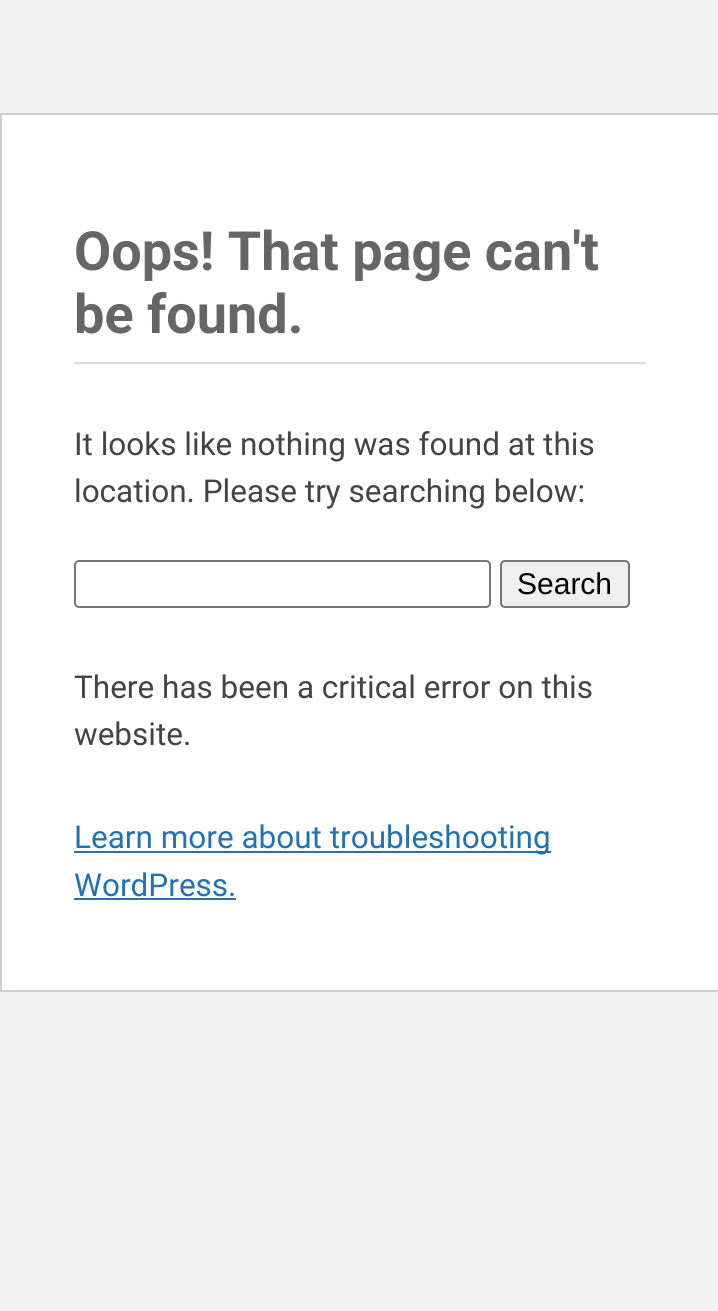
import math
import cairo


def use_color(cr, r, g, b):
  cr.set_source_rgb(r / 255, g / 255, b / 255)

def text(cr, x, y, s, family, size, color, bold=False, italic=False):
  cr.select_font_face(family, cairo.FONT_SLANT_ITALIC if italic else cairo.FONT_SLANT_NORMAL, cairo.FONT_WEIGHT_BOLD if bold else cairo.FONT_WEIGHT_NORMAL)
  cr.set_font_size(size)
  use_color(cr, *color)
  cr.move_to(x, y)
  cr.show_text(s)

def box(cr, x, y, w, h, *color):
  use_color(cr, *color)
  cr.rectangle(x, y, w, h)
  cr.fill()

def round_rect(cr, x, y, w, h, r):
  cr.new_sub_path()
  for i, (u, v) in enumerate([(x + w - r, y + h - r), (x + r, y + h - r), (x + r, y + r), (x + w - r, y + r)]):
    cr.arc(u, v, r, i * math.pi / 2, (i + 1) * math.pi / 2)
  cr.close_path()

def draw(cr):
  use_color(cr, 241, 241, 241)
  cr.paint()
  use_color(cr, 255, 255, 255)
  cr.rectangle(1, 114, 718, 877)
  cr.fill_preserve()
  use_color(cr, 204, 208, 212)
  cr.stroke()
  box(cr, 74, 362, 572, 2, 218, 218, 218)
  round_rect(cr, 75, 561, 415, 46, 4)
  use_color(cr, 118, 118, 118)
  cr.stroke()
  use_color(cr, 239, 239, 239)
  round_rect(cr, 501, 561, 128, 46, 4)
  cr.fill_preserve()
  use_color(cr, 118, 118, 118)
  cr.stroke()
  box(cr, 74, 851, 477, 2, 34, 113, 177)
  box(cr, 74, 898, 162, 2, 34, 113, 177)
  text(cr, 74, 270, "Oops! That page can't", "Roboto", 54, (102, 102, 102), bold=True)
  text(cr, 74, 333, "be found.", "Roboto", 54, (102, 102, 102), bold=True)
  text(cr, 74, 455, "It looks like nothing was found at this", "Roboto", 31.5, (68, 68, 68))
  text(cr, 74, 502, "location. Please try searching below:", "Roboto", 31.5, (68, 68, 68))
  text(cr, 517, 594, "Search", "Liberation Sans", 30, (0, 0, 0))
  text(cr, 74, 698, "There has been a critical error on this", "Roboto", 31.5, (68, 68, 68))
  text(cr, 74, 745, "website.", "Roboto", 31.5, (68, 68, 68))
  text(cr, 74, 848, "Learn more about troubleshooting", "Roboto", 31.5, (34, 113, 177))
  text(cr, 74, 896, "WordPress.", "Roboto", 31.5, (34, 113, 177))


surface = cairo.ImageSurface(cairo.FORMAT_RGB24, 718, 1311)
cr = cairo.Context(surface)
options = cairo.FontOptions()
options.set_hint_metrics(cairo.HINT_METRICS_OFF)
options.set_hint_style(cairo.HINT_STYLE_NONE)
cr.set_font_options(options)
cr.set_miter_limit(4)
draw(cr)
surface.write_to_png("out.png")
